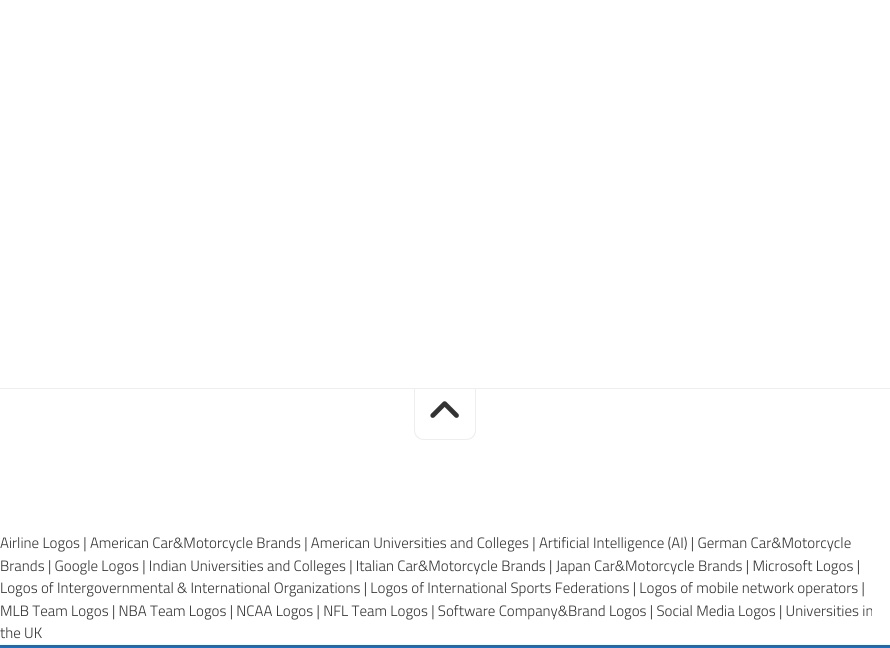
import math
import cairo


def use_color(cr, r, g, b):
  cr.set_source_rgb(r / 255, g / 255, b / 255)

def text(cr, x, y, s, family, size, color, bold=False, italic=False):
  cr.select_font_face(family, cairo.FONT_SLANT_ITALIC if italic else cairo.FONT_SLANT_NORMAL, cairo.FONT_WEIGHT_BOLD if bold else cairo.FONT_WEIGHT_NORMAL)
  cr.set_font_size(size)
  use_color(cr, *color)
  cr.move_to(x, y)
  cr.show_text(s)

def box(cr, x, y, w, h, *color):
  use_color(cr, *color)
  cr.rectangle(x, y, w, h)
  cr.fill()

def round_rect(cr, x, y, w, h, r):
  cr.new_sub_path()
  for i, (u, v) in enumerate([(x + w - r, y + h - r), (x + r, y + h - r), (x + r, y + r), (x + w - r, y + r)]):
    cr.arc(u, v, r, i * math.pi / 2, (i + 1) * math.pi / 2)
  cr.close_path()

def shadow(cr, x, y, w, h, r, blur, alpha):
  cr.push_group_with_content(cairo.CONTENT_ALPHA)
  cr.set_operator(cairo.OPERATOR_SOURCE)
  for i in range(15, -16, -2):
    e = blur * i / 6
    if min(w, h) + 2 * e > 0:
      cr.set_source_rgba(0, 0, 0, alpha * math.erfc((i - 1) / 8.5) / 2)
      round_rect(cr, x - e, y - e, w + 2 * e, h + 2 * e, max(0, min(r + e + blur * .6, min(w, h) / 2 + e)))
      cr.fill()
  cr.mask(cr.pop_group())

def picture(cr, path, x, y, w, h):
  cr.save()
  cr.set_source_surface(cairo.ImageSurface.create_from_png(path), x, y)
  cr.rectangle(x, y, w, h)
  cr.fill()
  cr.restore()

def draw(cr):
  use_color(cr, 30, 115, 190)
  cr.paint()
  use_color(cr, 0, 0, 0)
  shadow(cr, 0, -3, 890, 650, 0, 1, 0.1)
  box(cr, 0, 0, 890, 645, 255, 255, 255)
  box(cr, 0, 388, 890, 1, 238, 238, 238)
  cr.set_fill_rule(cairo.FILL_RULE_EVEN_ODD)
  cr.new_path()
  cr.move_to(414, 389)
  cr.line_to(476, 389)
  cr.line_to(476, 430)
  cr.curve_to(476, 436, 472, 440, 466, 440)
  cr.line_to(424, 440)
  cr.curve_to(418, 440, 414, 436, 414, 430)
  cr.close_path()
  cr.move_to(415, 389)
  cr.line_to(475, 389)
  cr.line_to(475, 430)
  cr.curve_to(475, 435, 471, 439, 466, 439)
  cr.line_to(424, 439)
  cr.curve_to(419, 439, 415, 435, 415, 430)
  cr.close_path()
  cr.fill()
  picture(cr, "img_01.png", 430, 401, 29, 17)
  text(cr, 0, 548, "Airline Logos | American Car&Motorcycle Brands | American Universities and Colleges | Artificial Intelligence (AI) | German Car&Motorcycle", "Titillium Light", 15, (51, 51, 51))
  text(cr, 0, 571, "Brands | Google Logos | Indian Universities and Colleges | Italian Car&Motorcycle Brands | Japan Car&Motorcycle Brands | Microsoft Logos |", "Titillium Light", 15, (51, 51, 51))
  text(cr, 0, 593, "Logos of Intergovernmental & International Organizations | Logos of International Sports Federations | Logos of mobile network operators |", "Titillium Light", 15, (51, 51, 51))
  text(cr, 0, 616, "MLB Team Logos | NBA Team Logos | NCAA Logos | NFL Team Logos | Software Company&Brand Logos | Social Media Logos | Universities in", "Titillium Light", 15, (51, 51, 51))
  text(cr, 0, 638, "the UK", "Titillium Light", 15, (51, 51, 51))


surface = cairo.ImageSurface(cairo.FORMAT_RGB24, 890, 648)
cr = cairo.Context(surface)
options = cairo.FontOptions()
options.set_hint_metrics(cairo.HINT_METRICS_OFF)
options.set_hint_style(cairo.HINT_STYLE_NONE)
cr.set_font_options(options)
cr.set_miter_limit(4)
draw(cr)
surface.write_to_png("out.png")
